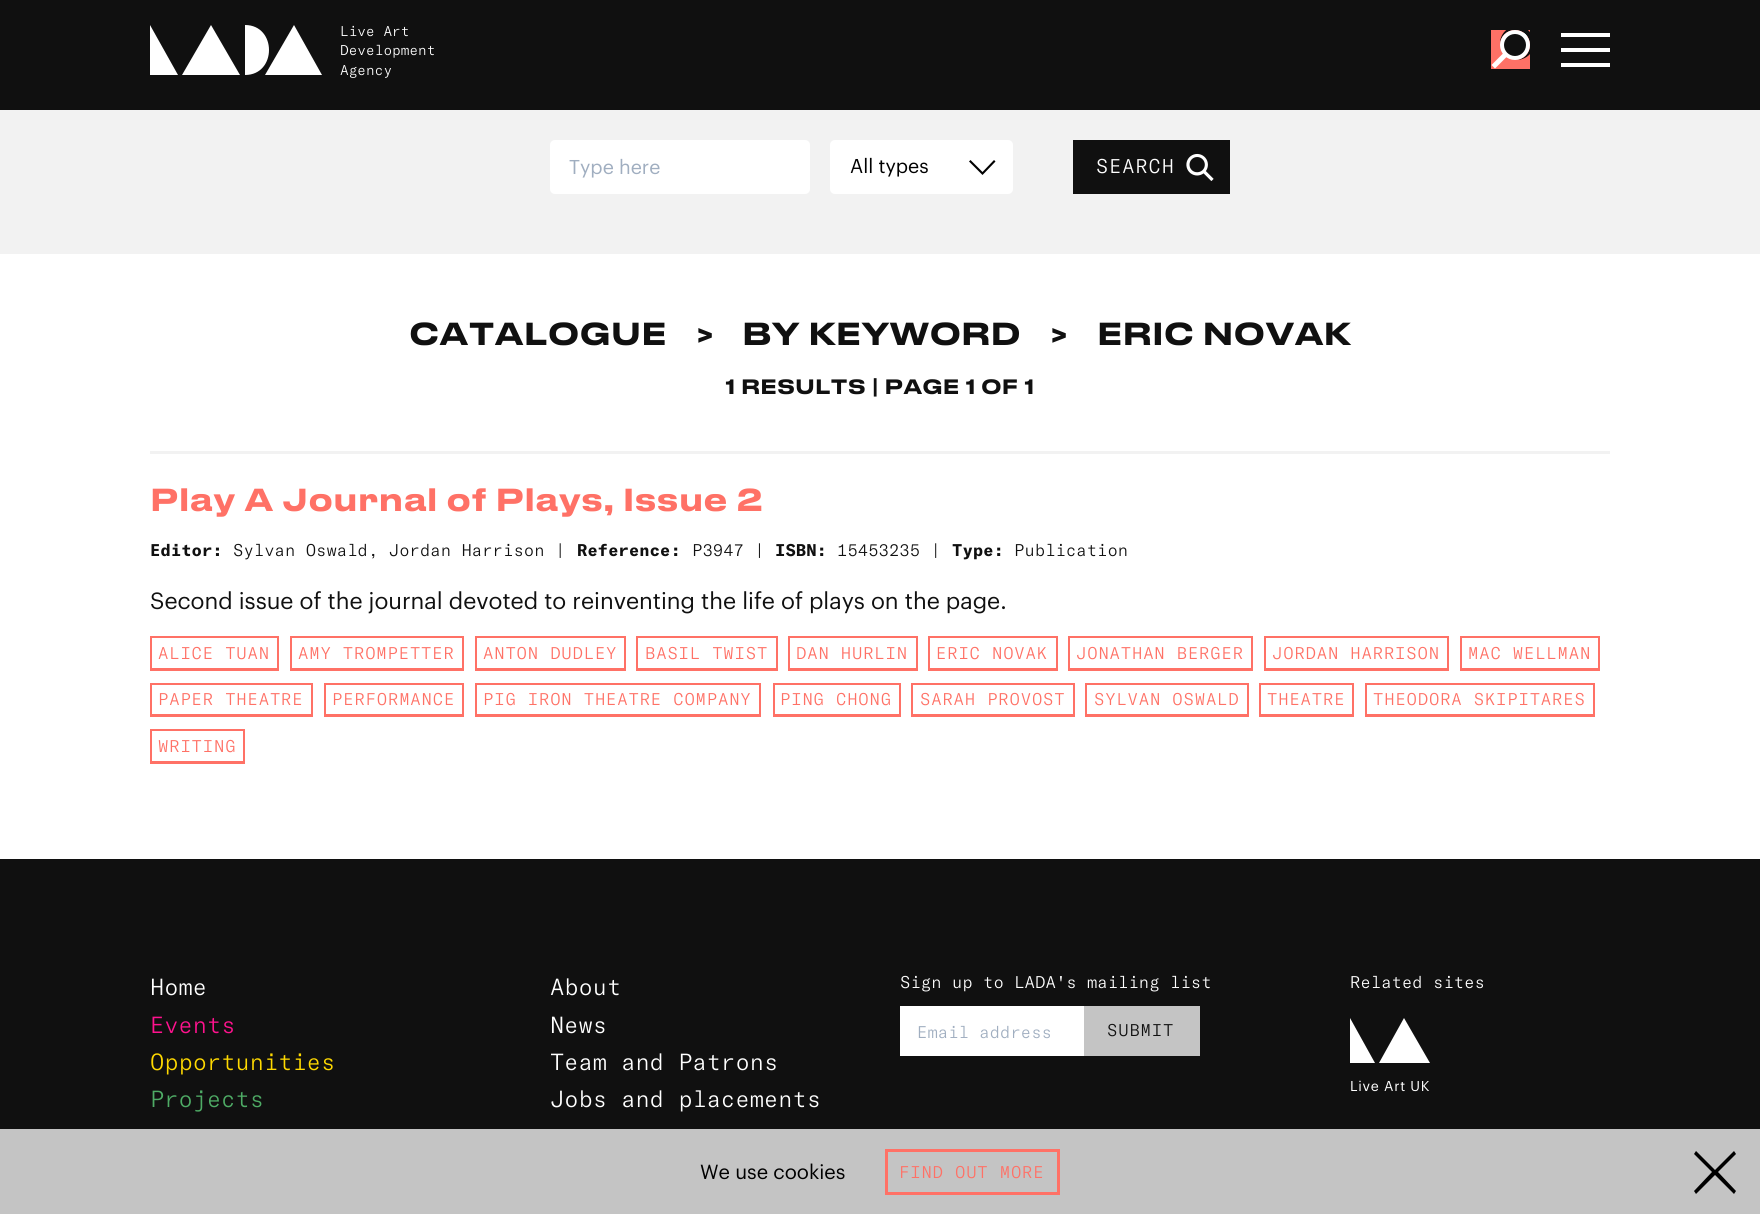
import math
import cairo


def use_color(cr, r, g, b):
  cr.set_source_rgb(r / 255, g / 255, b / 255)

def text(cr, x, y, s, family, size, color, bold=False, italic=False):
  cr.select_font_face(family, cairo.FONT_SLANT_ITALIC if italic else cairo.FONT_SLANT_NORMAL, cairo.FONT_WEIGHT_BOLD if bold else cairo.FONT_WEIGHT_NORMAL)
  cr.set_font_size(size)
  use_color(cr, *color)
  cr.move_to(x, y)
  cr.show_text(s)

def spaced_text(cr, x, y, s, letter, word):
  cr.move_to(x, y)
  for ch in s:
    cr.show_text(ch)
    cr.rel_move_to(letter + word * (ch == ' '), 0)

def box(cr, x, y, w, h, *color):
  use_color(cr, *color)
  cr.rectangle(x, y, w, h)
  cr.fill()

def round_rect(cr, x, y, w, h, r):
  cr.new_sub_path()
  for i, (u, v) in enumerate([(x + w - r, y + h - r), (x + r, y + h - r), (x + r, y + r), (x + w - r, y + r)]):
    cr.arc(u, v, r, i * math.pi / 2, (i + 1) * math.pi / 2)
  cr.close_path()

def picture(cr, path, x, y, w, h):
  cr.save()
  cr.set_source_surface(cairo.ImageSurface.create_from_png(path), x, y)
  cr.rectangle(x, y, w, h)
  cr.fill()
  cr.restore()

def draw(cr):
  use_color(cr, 255, 255, 255)
  cr.paint()
  box(cr, 0, 0, 1760, 110, 16, 16, 16)
  use_color(cr, 255, 255, 255)
  cr.new_path()
  cr.move_to(265, 75)
  cr.line_to(294, 25)
  cr.line_to(322, 75)
  cr.close_path()
  cr.fill()
  cr.new_path()
  cr.move_to(182, 75)
  cr.line_to(211, 25)
  cr.line_to(240, 75)
  cr.close_path()
  cr.fill()
  cr.new_path()
  cr.move_to(150, 25)
  cr.line_to(150, 75)
  cr.line_to(178, 75)
  cr.close_path()
  cr.fill()
  cr.new_path()
  cr.move_to(245, 25)
  cr.line_to(245, 75)
  cr.curve_to(277, 75, 277, 25, 245, 25)
  cr.fill()
  box(cr, 1491, 30, 39, 39, 255, 113, 102)
  use_color(cr, 255, 255, 255)
  cr.new_path()
  cr.move_to(1491.5, 65)
  cr.line_to(1526, 30.5)
  cr.line_to(1529.5, 34)
  cr.line_to(1495, 68.5)
  cr.close_path()
  cr.fill()
  use_color(cr, 16, 16, 16)
  cr.new_path()
  cr.move_to(1517, 26)
  cr.curve_to(1507.5, 26, 1499.5, 34.5, 1500, 44)
  cr.curve_to(1500.5, 36, 1507, 30, 1515, 30)
  cr.curve_to(1523.5, 30, 1530, 36.5, 1530, 45)
  cr.curve_to(1530, 53, 1524, 59.5, 1516, 60)
  cr.curve_to(1519.5, 60, 1523.5, 59, 1526.5, 57)
  cr.curve_to(1540.5, 48, 1533.5, 26, 1517, 26)
  cr.close_path()
  cr.fill()
  cr.arc(1515, 45, 13, 0, 2 * math.pi)
  cr.fill_preserve()
  use_color(cr, 255, 255, 255)
  cr.set_line_width(4)
  cr.stroke()
  box(cr, 1561, 33, 49, 4, 255, 255, 255)
  box(cr, 1561, 48, 49, 4, 255, 255, 255)
  box(cr, 1561, 63, 49, 4, 255, 255, 255)
  box(cr, 0, 110, 1760, 144, 242, 242, 242)
  use_color(cr, 255, 255, 255)
  round_rect(cr, 550, 140, 260, 54, 5)
  cr.fill()
  round_rect(cr, 830, 140, 183, 54, 5)
  cr.fill()
  use_color(cr, 0, 0, 0)
  cr.new_path()
  cr.move_to(982.5, 172)
  cr.line_to(994, 160)
  cr.line_to(995.5, 161.5)
  cr.line_to(982.5, 175)
  cr.line_to(969, 161.5)
  cr.line_to(970.5, 160)
  cr.close_path()
  cr.fill()
  box(cr, 1073, 140, 157, 54, 16, 16, 16)
  picture(cr, "img_01.png", 1186, 153, 28, 28)
  box(cr, 150, 451, 1460, 3, 242, 242, 242)
  cr.rectangle(151, 637, 127, 32)
  use_color(cr, 255, 113, 102)
  cr.set_line_width(2)
  cr.stroke()
  box(cr, 150, 670, 129, 1, 255, 113, 102)
  cr.rectangle(291, 637, 172, 32)
  cr.stroke()
  box(cr, 290, 670, 174, 1, 255, 113, 102)
  cr.rectangle(476, 637, 149, 32)
  cr.stroke()
  box(cr, 475, 670, 151, 1, 255, 113, 102)
  cr.rectangle(637, 637, 140, 32)
  cr.stroke()
  box(cr, 636, 670, 142, 1, 255, 113, 102)
  cr.rectangle(789, 637, 128, 32)
  cr.stroke()
  box(cr, 788, 670, 130, 1, 255, 113, 102)
  cr.rectangle(929, 637, 128, 32)
  cr.stroke()
  box(cr, 928, 670, 130, 1, 255, 113, 102)
  cr.rectangle(1069, 637, 183, 32)
  cr.stroke()
  box(cr, 1068, 670, 185, 1, 255, 113, 102)
  cr.rectangle(1265, 637, 183, 32)
  cr.stroke()
  box(cr, 1264, 670, 185, 1, 255, 113, 102)
  cr.rectangle(1461, 637, 138, 32)
  cr.stroke()
  box(cr, 1460, 670, 140, 1, 255, 113, 102)
  cr.rectangle(151, 684, 161, 31)
  cr.stroke()
  box(cr, 150, 716, 163, 1, 255, 113, 102)
  cr.rectangle(325, 684, 138, 31)
  cr.stroke()
  box(cr, 324, 716, 140, 1, 255, 113, 102)
  cr.rectangle(476, 684, 284, 31)
  cr.stroke()
  box(cr, 475, 716, 286, 1, 255, 113, 102)
  cr.rectangle(774, 684, 126, 31)
  cr.stroke()
  box(cr, 773, 716, 128, 1, 255, 113, 102)
  cr.rectangle(912, 684, 162, 31)
  cr.stroke()
  box(cr, 911, 716, 164, 1, 255, 113, 102)
  cr.rectangle(1086, 684, 162, 31)
  cr.stroke()
  box(cr, 1085, 716, 164, 1, 255, 113, 102)
  cr.rectangle(1260, 684, 93, 31)
  cr.stroke()
  box(cr, 1259, 716, 95, 1, 255, 113, 102)
  cr.rectangle(1366, 684, 228, 31)
  cr.stroke()
  box(cr, 1365, 716, 230, 1, 255, 113, 102)
  cr.rectangle(151, 730, 93, 32)
  cr.stroke()
  box(cr, 150, 763, 95, 1, 255, 113, 102)
  box(cr, 0, 859, 1760, 270, 16, 16, 16)
  box(cr, 900, 1006, 184, 50, 255, 255, 255)
  box(cr, 1084, 1006, 116, 50, 196, 196, 196)
  use_color(cr, 255, 255, 255)
  cr.new_path()
  cr.move_to(1379, 1063)
  cr.line_to(1404, 1018)
  cr.line_to(1430, 1063)
  cr.close_path()
  cr.fill()
  cr.new_path()
  cr.move_to(1350, 1018)
  cr.line_to(1350, 1063)
  cr.line_to(1375, 1063)
  cr.close_path()
  cr.fill()
  box(cr, 0, 1129, 1760, 85, 196, 196, 196)
  cr.rectangle(886.5, 1150.5, 172, 43)
  use_color(cr, 255, 113, 102)
  cr.set_line_width(3)
  cr.stroke()
  use_color(cr, 0, 0, 0)
  cr.new_path()
  cr.move_to(1712, 1172)
  cr.line_to(1694, 1154)
  cr.line_to(1696, 1151)
  cr.line_to(1715, 1170)
  cr.line_to(1734, 1151)
  cr.line_to(1736, 1154)
  cr.line_to(1718, 1172)
  cr.line_to(1736, 1191)
  cr.line_to(1734, 1194)
  cr.line_to(1715, 1175)
  cr.line_to(1696, 1194)
  cr.line_to(1694, 1191)
  cr.close_path()
  cr.fill()
  text(cr, 340, 36, "Live Art", "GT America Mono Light", 14, (255, 255, 255))
  text(cr, 340, 55, "Development", "GT America Mono Light", 14, (255, 255, 255))
  text(cr, 340, 75, "Agency", "GT America Mono Light", 14, (255, 255, 255))
  text(cr, 569, 174, "Type here", "Graphik", 19.6, (160, 174, 192))
  text(cr, 850, 173, "All types", "Graphik", 19.6, (0, 0, 0))
  cr.select_font_face("GT America Mono Light")
  use_color(cr, 255, 255, 255)
  spaced_text(cr, 1096, 173, "SEARCH", 1, 0)
  text(cr, 409, 345, "CATALOGUE", "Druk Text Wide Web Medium", 30, (16, 16, 16))
  text(cr, 696, 345, ">", "Druk Text Wide Web Medium", 30, (16, 16, 16))
  text(cr, 742, 345, "BY KEYWORD", "Druk Text Wide Web Medium", 30, (16, 16, 16))
  text(cr, 1050, 345, ">", "Druk Text Wide Web Medium", 30, (16, 16, 16))
  text(cr, 1097, 345, "ERIC NOVAK", "Druk Text Wide Web Medium", 30, (16, 16, 16))
  text(cr, 725, 394, "1 RESULTS | PAGE 1 OF 1", "Druk Text Wide Web Medium", 19.6, (16, 16, 16))
  text(cr, 150, 511, "Play A Journal of Plays, Issue 2", "Druk Text Wide Web Medium", 30, (255, 113, 102))
  text(cr, 150, 556, "Editor:", "GT America Mono", 16.75, (16, 16, 16), bold=True)
  text(cr, 233, 556, "Sylvan Oswald, Jordan Harrison |", "GT America Mono Light", 16.75, (16, 16, 16))
  text(cr, 577, 556, "Reference:", "GT America Mono", 16.75, (16, 16, 16), bold=True)
  text(cr, 692, 556, "P3947 |", "GT America Mono Light", 16.75, (16, 16, 16))
  text(cr, 775, 556, "ISBN:", "GT America Mono", 16.75, (16, 16, 16), bold=True)
  text(cr, 837, 556, "15453235 |", "GT America Mono Light", 16.75, (16, 16, 16))
  text(cr, 952, 556, "Type:", "GT America Mono", 16.75, (16, 16, 16), bold=True)
  text(cr, 1014, 556, "Publication", "GT America Mono Light", 16.75, (16, 16, 16))
  text(cr, 150, 609, "Second issue of the journal devoted to reinventing the life of plays on the page.", "Graphik", 23, (16, 16, 16))
  cr.select_font_face("GT America Mono Light")
  cr.set_font_size(16.75)
  use_color(cr, 255, 113, 102)
  spaced_text(cr, 158, 659, "ALICE TUAN", 0.8, 0)
  spaced_text(cr, 298, 659, "AMY TROMPETTER", 0.8, 0)
  spaced_text(cr, 483, 659, "ANTON DUDLEY", 0.8, 0)
  spaced_text(cr, 645, 659, "BASIL TWIST", 0.8, 0)
  spaced_text(cr, 796, 659, "DAN HURLIN", 0.8, 0)
  spaced_text(cr, 936, 659, "ERIC NOVAK", 0.8, 0)
  spaced_text(cr, 1076, 659, "JONATHAN BERGER", 0.8, 0)
  spaced_text(cr, 1272, 659, "JORDAN HARRISON", 0.8, 0)
  spaced_text(cr, 1468, 659, "MAC WELLMAN", 0.8, 0)
  spaced_text(cr, 158, 705, "PAPER THEATRE", 0.8, 0)
  spaced_text(cr, 332, 705, "PERFORMANCE", 0.8, 0)
  spaced_text(cr, 483, 705, "PIG IRON THEATRE COMPANY", 0.8, 0)
  spaced_text(cr, 780, 705, "PING CHONG", 0.8, 0)
  spaced_text(cr, 920, 705, "SARAH PROVOST", 0.8, 0)
  spaced_text(cr, 1094, 705, "SYLVAN OSWALD", 0.8, 0)
  spaced_text(cr, 1267, 705, "THEATRE", 0.8, 0)
  spaced_text(cr, 1373, 705, "THEODORA SKIPITARES", 0.8, 0)
  spaced_text(cr, 158, 752, "WRITING", 0.8, 0)
  text(cr, 150, 995, "Home", "GT America Mono Light", 23, (255, 255, 255))
  text(cr, 150, 1033, "Events", "GT America Mono Light", 23, (255, 18, 142))
  text(cr, 150, 1070, "Opportunities", "GT America Mono Light", 23, (255, 217, 0))
  text(cr, 150, 1107, "Projects", "GT America Mono Light", 23, (78, 171, 101))
  text(cr, 550, 995, "About", "GT America Mono Light", 23, (255, 255, 255))
  text(cr, 550, 1033, "News", "GT America Mono Light", 23, (255, 255, 255))
  text(cr, 550, 1070, "Team and Patrons", "GT America Mono Light", 23, (255, 255, 255))
  text(cr, 550, 1107, "Jobs and placements", "GT America Mono Light", 23, (255, 255, 255))
  text(cr, 900, 988, "Sign up to LADA's mailing list", "GT America Mono Light", 16.75, (255, 255, 255))
  text(cr, 917, 1038, "Email address", "GT America Mono Light", 16.75, (160, 174, 192))
  use_color(cr, 16, 16, 16)
  spaced_text(cr, 1107, 1036, "SUBMIT", 0.8, 0)
  text(cr, 1350, 988, "Related sites", "GT America Mono Light", 16.75, (255, 255, 255))
  cr.select_font_face("Graphik")
  cr.set_font_size(14)
  spaced_text(cr, 1350, 1091, "Live Art UK", 0.75, 0)
  text(cr, 700, 1179, "We use cookies", "Graphik", 20, (0, 0, 0))
  cr.select_font_face("GT America Mono Light")
  cr.set_font_size(16.75)
  use_color(cr, 255, 113, 102)
  spaced_text(cr, 899, 1178, "FIND OUT MORE", 0.8, 0)


surface = cairo.ImageSurface(cairo.FORMAT_RGB24, 1760, 1214)
cr = cairo.Context(surface)
options = cairo.FontOptions()
options.set_hint_metrics(cairo.HINT_METRICS_OFF)
options.set_hint_style(cairo.HINT_STYLE_NONE)
cr.set_font_options(options)
cr.set_miter_limit(4)
draw(cr)
surface.write_to_png("out.png")
